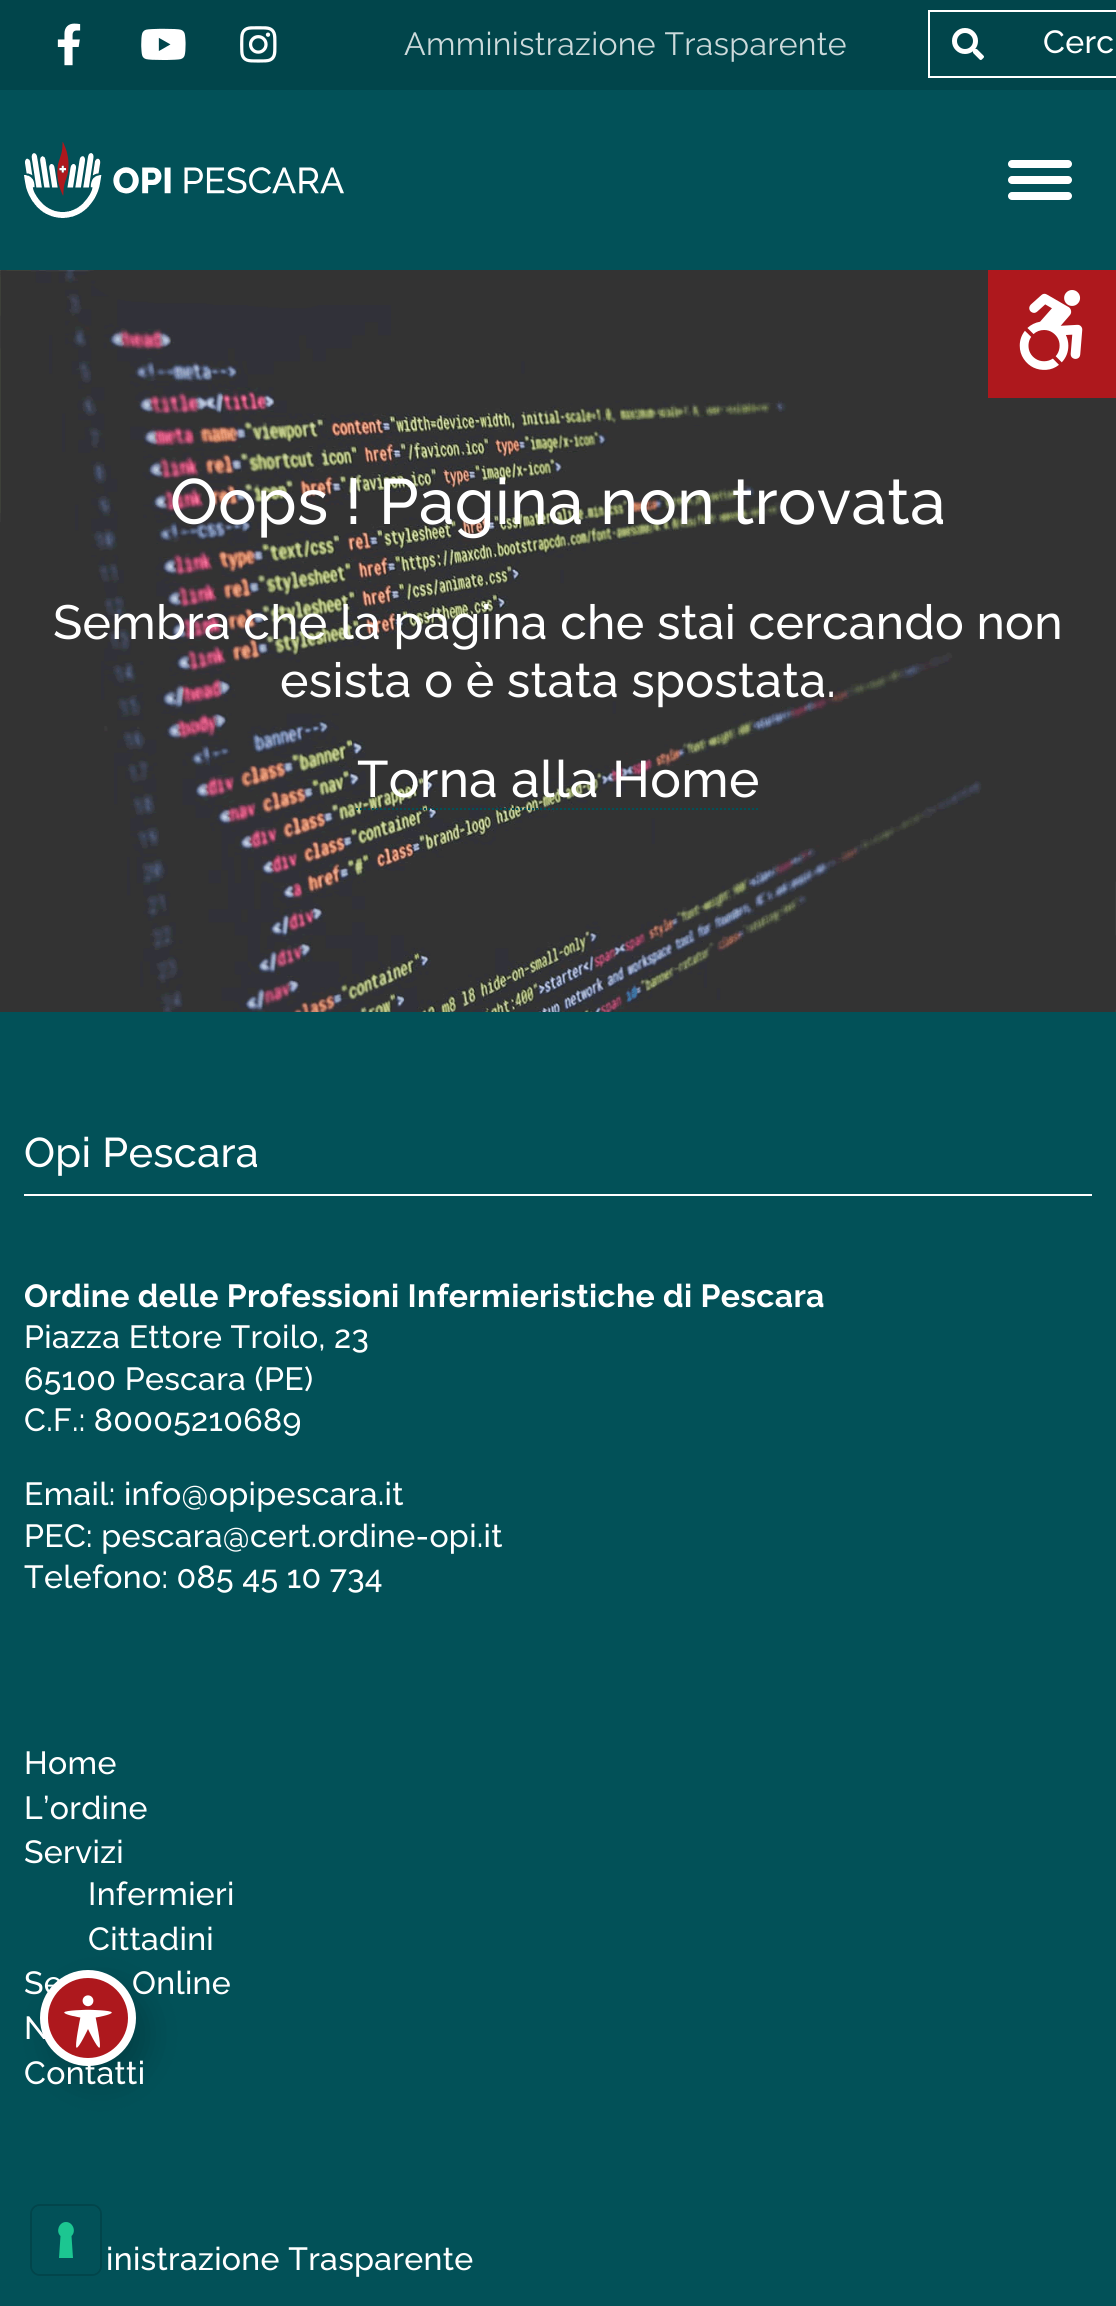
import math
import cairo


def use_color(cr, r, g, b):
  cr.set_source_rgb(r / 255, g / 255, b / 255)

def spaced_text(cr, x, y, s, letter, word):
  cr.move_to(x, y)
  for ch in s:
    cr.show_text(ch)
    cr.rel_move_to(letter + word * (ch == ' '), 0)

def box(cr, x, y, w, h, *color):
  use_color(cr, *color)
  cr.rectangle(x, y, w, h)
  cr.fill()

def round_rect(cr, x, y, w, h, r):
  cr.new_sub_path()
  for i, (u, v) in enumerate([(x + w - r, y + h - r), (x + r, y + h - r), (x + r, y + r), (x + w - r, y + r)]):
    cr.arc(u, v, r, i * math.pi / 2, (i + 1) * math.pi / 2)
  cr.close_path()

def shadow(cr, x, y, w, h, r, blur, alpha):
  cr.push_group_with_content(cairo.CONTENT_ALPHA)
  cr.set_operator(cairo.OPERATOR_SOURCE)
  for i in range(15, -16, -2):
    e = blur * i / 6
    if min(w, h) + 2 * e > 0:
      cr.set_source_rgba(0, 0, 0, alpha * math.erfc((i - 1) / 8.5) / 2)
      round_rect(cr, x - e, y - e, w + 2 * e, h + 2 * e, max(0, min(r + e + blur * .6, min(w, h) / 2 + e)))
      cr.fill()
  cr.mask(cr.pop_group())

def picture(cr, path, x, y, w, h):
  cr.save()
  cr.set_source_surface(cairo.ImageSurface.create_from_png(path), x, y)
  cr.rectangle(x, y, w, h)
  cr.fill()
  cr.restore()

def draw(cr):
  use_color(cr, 1, 69, 75)
  cr.paint()
  picture(cr, "img_01.png", 57, 23, 24, 43)
  picture(cr, "img_02.png", 141, 28, 45, 32)
  picture(cr, "img_03.png", 240, 26, 37, 37)
  cr.rectangle(929, 11, 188, 66)
  use_color(cr, 255, 255, 255)
  cr.stroke()
  picture(cr, "img_04.png", 952, 28, 32, 32)
  box(cr, 0, 90, 1116, 180, 2, 81, 88)
  picture(cr, "img_05.png", 24, 142, 320, 76)
  use_color(cr, 255, 255, 255)
  round_rect(cr, 1008, 160, 64, 8, 4)
  cr.fill()
  round_rect(cr, 1008, 176, 64, 8, 4)
  cr.fill()
  round_rect(cr, 1008, 192, 64, 8, 4)
  cr.fill()
  picture(cr, "img_07.png", 0, 270, 1116, 742)
  box(cr, 988, 270, 128, 128, 174, 24, 29)
  picture(cr, "img_06.png", 1019, 290, 64, 80)
  cr.new_path()
  cr.move_to(356, 809)
  cr.line_to(760, 809)
  use_color(cr, 2, 81, 88)
  cr.set_dash([2, 2])
  cr.stroke()
  box(cr, 0, 1012, 1116, 1294, 2, 81, 88)
  box(cr, 24, 1194, 1068, 2, 255, 255, 255)
  use_color(cr, 0, 0, 0)
  shadow(cr, 52, 1986, 96, 96, 48, 16, 0.2)
  round_rect(cr, 31, 2205, 70, 70, 9)
  cr.set_source_rgba(0, 0, 0, 0.15)
  cr.set_dash([])
  cr.stroke()
  use_color(cr, 2, 81, 88)
  round_rect(cr, 32, 2206, 68, 68, 8)
  cr.fill()
  use_color(cr, 28, 198, 145)
  cr.set_fill_rule(cairo.FILL_RULE_EVEN_ODD)
  cr.new_path()
  cr.move_to(66, 2222)
  cr.curve_to(73, 2222, 76.5, 2231.5, 71.5, 2236)
  cr.line_to(73, 2258)
  cr.line_to(59, 2258)
  cr.line_to(60.5, 2236)
  cr.curve_to(55.5, 2231.5, 59, 2222, 66, 2222)
  cr.close_path()
  cr.fill()
  cr.select_font_face("Raleway")
  cr.set_font_size(32)
  use_color(cr, 204, 218, 219)
  spaced_text(cr, 404, 55, "Amministrazione Trasparente", 0.32, 0)
  cr.select_font_face("Raleway Medium")
  use_color(cr, 255, 255, 255)
  spaced_text(cr, 1043, 53, "Cerc", 0.32, 0)
  cr.set_font_size(64)
  spaced_text(cr, 170, 524, "Oops ! Pagina non trovata", 0.32, 0)
  cr.set_font_size(48)
  spaced_text(cr, 53, 639, "Sembra che la pagina che stai cercando non", 0.32, 0)
  spaced_text(cr, 280, 697, "esista o è stata spostata.", 0.32, 0)
  cr.set_font_size(51.25)
  spaced_text(cr, 357, 797, "Torna alla Home", 0.32, 0)
  cr.set_font_size(41.5)
  spaced_text(cr, 24, 1167, "Opi Pescara", 0.32, 0)
  cr.select_font_face("Raleway", cairo.FONT_SLANT_NORMAL, cairo.FONT_WEIGHT_BOLD)
  cr.set_font_size(32)
  spaced_text(cr, 24, 1307, "Ordine delle Professioni Infermieristiche di Pescara", 0.32, 0)
  cr.select_font_face("Raleway Medium")
  spaced_text(cr, 24, 1348, "Piazza Ettore Troilo, 23", 0.32, 0)
  spaced_text(cr, 24, 1390, "65100 Pescara (PE)", 0.32, 0)
  spaced_text(cr, 24, 1431, "C.F.: 80005210689", 0.32, 0)
  spaced_text(cr, 24, 1505, "Email: info@opipescara.it", 0.32, 0)
  spaced_text(cr, 24, 1547, "PEC: pescara@cert.ordine-opi.it", 0.32, 0)
  spaced_text(cr, 24, 1588, "Telefono: 085 45 10 734", 0.32, 0)
  spaced_text(cr, 24, 1774, "Home", 0.32, 0)
  spaced_text(cr, 24, 1819, "L’ordine", 0.32, 0)
  spaced_text(cr, 24, 1863, "Servizi", 0.32, 0)
  spaced_text(cr, 88, 1905, "Infermieri", 0.32, 0)
  spaced_text(cr, 88, 1950, "Cittadini", 0.32, 0)
  spaced_text(cr, 24, 1994, "Se", 0.32, 0)
  spaced_text(cr, 132, 1994, "Online", 0.32, 0)
  spaced_text(cr, 24, 2039, "N", 0.32, 0)
  spaced_text(cr, 24, 2084, "Contatti", 0.32, 0)
  spaced_text(cr, 106, 2270, "inistrazione Trasparente", 0.32, 0)
  use_color(cr, 174, 24, 29)
  cr.new_path()
  cr.arc(88, 2018, 44, 0, 2 * math.pi)
  cr.fill_preserve()
  use_color(cr, 255, 255, 255)
  cr.set_line_width(8)
  cr.stroke()
  picture(cr, "img_08.png", 64, 1995, 48, 53)


surface = cairo.ImageSurface(cairo.FORMAT_RGB24, 1116, 2306)
cr = cairo.Context(surface)
options = cairo.FontOptions()
options.set_hint_metrics(cairo.HINT_METRICS_OFF)
options.set_hint_style(cairo.HINT_STYLE_NONE)
cr.set_font_options(options)
cr.set_miter_limit(4)
draw(cr)
surface.write_to_png("out.png")
